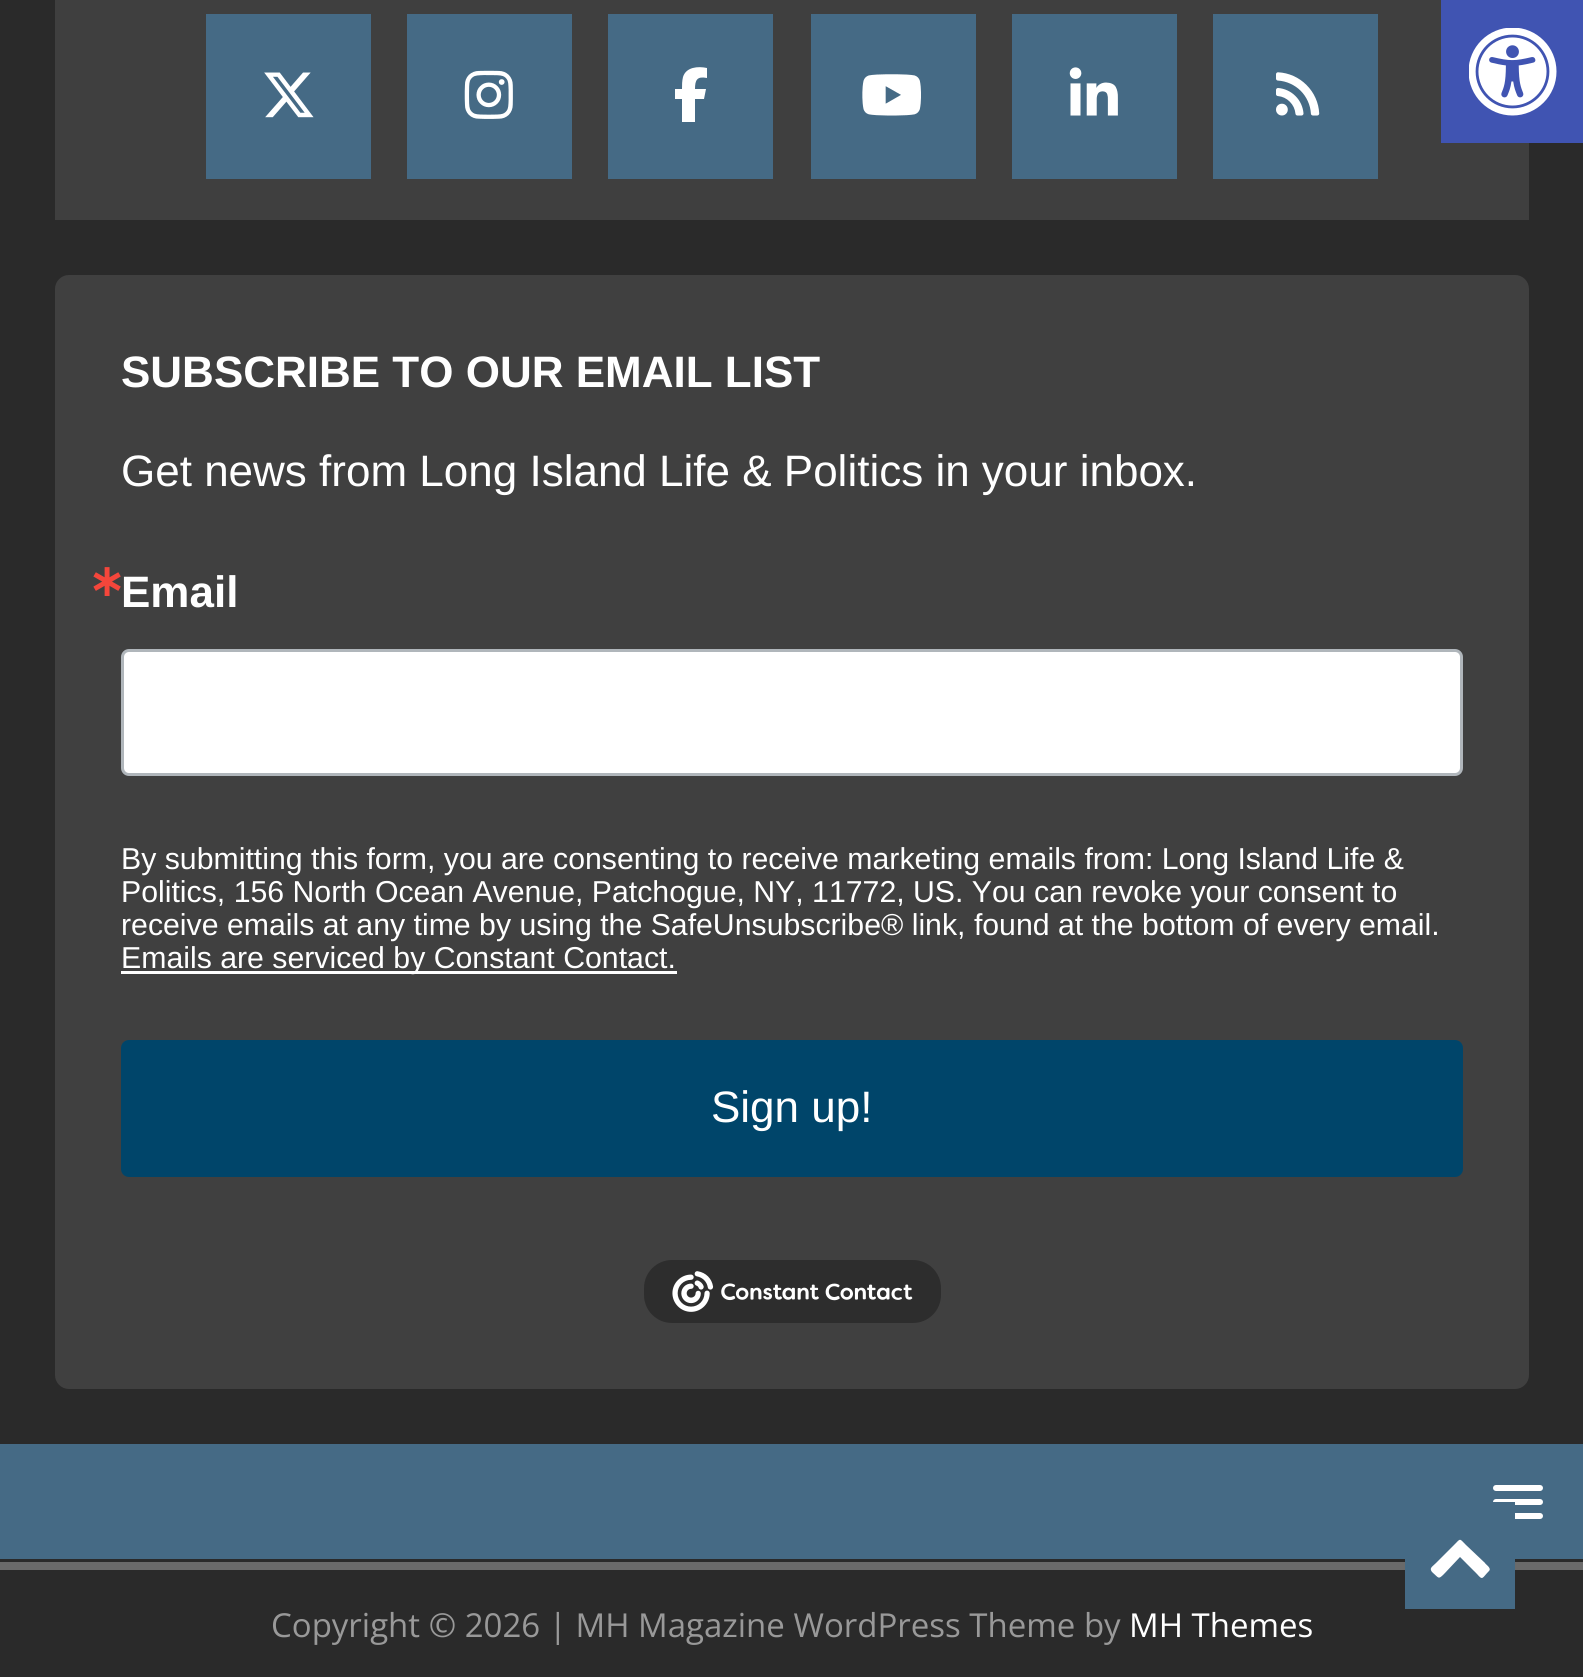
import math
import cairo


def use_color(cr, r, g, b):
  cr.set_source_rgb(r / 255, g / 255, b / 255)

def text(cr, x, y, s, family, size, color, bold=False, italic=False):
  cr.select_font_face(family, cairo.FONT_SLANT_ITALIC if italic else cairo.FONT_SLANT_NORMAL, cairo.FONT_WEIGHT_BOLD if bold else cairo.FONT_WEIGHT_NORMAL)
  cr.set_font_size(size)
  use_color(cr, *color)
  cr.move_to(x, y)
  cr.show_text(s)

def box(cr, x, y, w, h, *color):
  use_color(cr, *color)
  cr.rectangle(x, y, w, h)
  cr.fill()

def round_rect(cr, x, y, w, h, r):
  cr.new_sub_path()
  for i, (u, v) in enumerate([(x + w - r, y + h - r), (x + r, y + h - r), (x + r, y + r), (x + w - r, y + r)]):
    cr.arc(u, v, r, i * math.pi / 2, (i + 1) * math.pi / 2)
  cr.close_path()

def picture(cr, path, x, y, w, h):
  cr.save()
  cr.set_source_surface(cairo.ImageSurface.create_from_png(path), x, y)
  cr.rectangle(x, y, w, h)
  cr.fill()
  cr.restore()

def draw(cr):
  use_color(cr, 42, 42, 42)
  cr.paint()
  box(cr, 55, 0, 1474, 220, 63, 63, 63)
  box(cr, 1441, 0, 142, 143, 64, 84, 178)
  picture(cr, "img_01.png", 1469, 28, 88, 88)
  box(cr, 206, 14, 165, 165, 69, 106, 133)
  picture(cr, "img_02.png", 264, 72, 50, 46)
  box(cr, 407, 14, 165, 165, 69, 106, 133)
  picture(cr, "img_03.png", 464, 70, 49, 49)
  box(cr, 608, 14, 165, 165, 69, 106, 133)
  use_color(cr, 255, 255, 255)
  cr.new_path()
  cr.move_to(682, 99)
  cr.line_to(682, 122)
  cr.line_to(682, 99)
  cr.line_to(682, 122)
  cr.line_to(695, 122)
  cr.line_to(695, 99)
  cr.line_to(704, 99)
  cr.line_to(706, 89)
  cr.line_to(695, 89)
  cr.curve_to(695, 80, 697, 76, 707, 78)
  cr.line_to(707, 68)
  cr.curve_to(698, 66, 686, 67, 683, 77)
  cr.curve_to(682, 81, 682, 85, 682, 89)
  cr.line_to(675, 89)
  cr.line_to(675, 99)
  cr.close_path()
  cr.fill()
  box(cr, 811, 14, 165, 165, 69, 106, 133)
  picture(cr, "img_04.png", 862, 74, 59, 42)
  box(cr, 1012, 14, 165, 165, 69, 106, 133)
  picture(cr, "img_05.png", 1069, 67, 49, 49)
  box(cr, 1213, 14, 165, 165, 69, 106, 133)
  picture(cr, "img_06.png", 1276, 72, 44, 44)
  use_color(cr, 64, 64, 64)
  round_rect(cr, 55, 275, 1474, 1114, 14)
  cr.fill()
  use_color(cr, 255, 255, 255)
  round_rect(cr, 122.5, 650.5, 1339, 124, 6.5)
  cr.fill_preserve()
  use_color(cr, 176, 182, 187)
  cr.set_line_width(3)
  cr.stroke()
  box(cr, 121, 971, 556, 3, 255, 255, 255)
  use_color(cr, 0, 69, 106)
  round_rect(cr, 122.5, 1041.5, 1339, 134, 6.5)
  cr.fill_preserve()
  cr.stroke()
  use_color(cr, 45, 45, 45)
  round_rect(cr, 644, 1260, 297, 63, 28)
  cr.fill()
  picture(cr, "img_07.png", 672, 1271, 241, 41)
  box(cr, 0, 1444, 1583, 115, 69, 106, 133)
  use_color(cr, 255, 255, 255)
  round_rect(cr, 1493, 1485, 50, 6, 3)
  cr.fill()
  round_rect(cr, 1493, 1499, 50, 6, 3)
  cr.fill()
  round_rect(cr, 1493, 1513, 50, 6, 3)
  cr.fill()
  box(cr, 0, 1562, 1583, 8, 106, 106, 106)
  box(cr, 1405, 1502, 110, 107, 69, 106, 133)
  use_color(cr, 255, 255, 255)
  cr.new_path()
  cr.move_to(1489, 1571)
  cr.curve_to(1482, 1578, 1483, 1581, 1477, 1574)
  cr.line_to(1460, 1557)
  cr.line_to(1444, 1574)
  cr.curve_to(1438, 1580, 1439, 1578, 1432, 1572)
  cr.curve_to(1429, 1568, 1432, 1567, 1436, 1563)
  cr.line_to(1454, 1545)
  cr.curve_to(1461, 1538, 1459, 1538, 1466, 1545)
  cr.line_to(1485, 1563)
  cr.curve_to(1485, 1564, 1492, 1568, 1489, 1571)
  cr.close_path()
  cr.fill()
  text(cr, 121, 387, "SUBSCRIBE TO OUR EMAIL LIST", "Liberation Sans", 44, (255, 255, 255), bold=True)
  text(cr, 121, 486, "Get news from Long Island Life & Politics in your inbox.", "Liberation Sans", 44, (255, 255, 255))
  text(cr, 88, 596, "∗", "DejaVu Sans", 44, (245, 70, 59), bold=True)
  text(cr, 121, 607, "Email", "Liberation Sans", 44, (255, 255, 255), bold=True)
  text(cr, 121, 869, "By submitting this form, you are consenting to receive marketing emails from: Long Island Life &", "Liberation Sans", 30.25, (255, 255, 255))
  text(cr, 121, 902, "Politics, 156 North Ocean Avenue, Patchogue, NY, 11772, US. You can revoke your consent to", "Liberation Sans", 30.25, (255, 255, 255))
  text(cr, 121, 935, "receive emails at any time by using the SafeUnsubscribe® link, found at the bottom of every email.", "Liberation Sans", 30.25, (255, 255, 255))
  text(cr, 121, 968, "Emails are serviced by Constant Contact.", "Liberation Sans", 30.25, (255, 255, 255))
  text(cr, 711, 1122, "Sign up!", "Liberation Sans", 44, (255, 255, 255))
  text(cr, 271, 1637, "Copyright © 2026 | MH Magazine WordPress Theme by", "Open Sans", 33, (153, 153, 153))
  text(cr, 1129, 1637, "MH Themes", "Open Sans", 33, (255, 255, 255))


surface = cairo.ImageSurface(cairo.FORMAT_RGB24, 1583, 1677)
cr = cairo.Context(surface)
options = cairo.FontOptions()
options.set_hint_metrics(cairo.HINT_METRICS_OFF)
options.set_hint_style(cairo.HINT_STYLE_NONE)
cr.set_font_options(options)
cr.set_miter_limit(4)
draw(cr)
surface.write_to_png("out.png")
